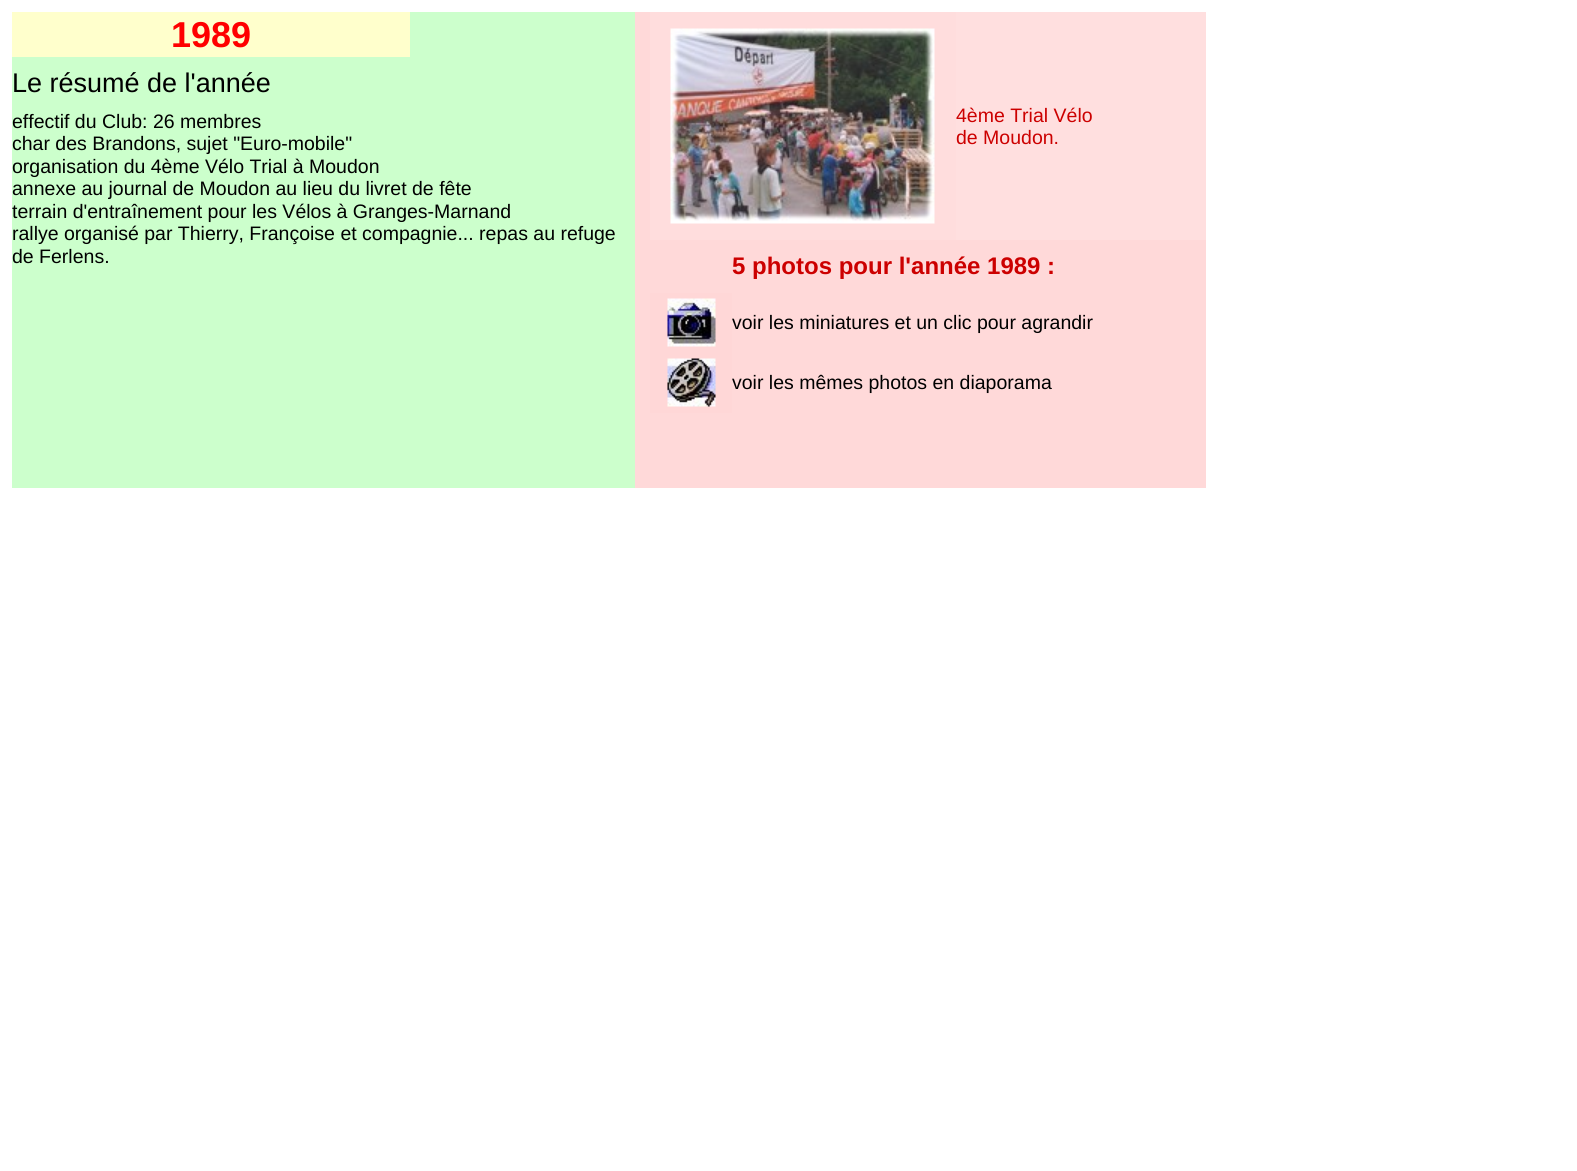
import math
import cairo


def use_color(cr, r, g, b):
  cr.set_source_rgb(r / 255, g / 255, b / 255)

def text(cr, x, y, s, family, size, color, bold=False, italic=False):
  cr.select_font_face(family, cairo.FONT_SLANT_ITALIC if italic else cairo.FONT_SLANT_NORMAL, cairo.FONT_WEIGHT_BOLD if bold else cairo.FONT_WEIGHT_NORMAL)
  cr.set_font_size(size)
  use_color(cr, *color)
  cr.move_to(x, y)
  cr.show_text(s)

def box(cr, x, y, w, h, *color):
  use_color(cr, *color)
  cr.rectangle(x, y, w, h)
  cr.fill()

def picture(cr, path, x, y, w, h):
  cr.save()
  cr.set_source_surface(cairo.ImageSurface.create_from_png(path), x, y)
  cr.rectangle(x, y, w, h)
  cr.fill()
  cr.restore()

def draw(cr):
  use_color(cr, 255, 255, 255)
  cr.paint()
  box(cr, 12, 57, 623, 431, 204, 255, 204)
  box(cr, 12, 12, 398, 45, 255, 255, 204)
  box(cr, 410, 12, 225, 45, 204, 255, 204)
  box(cr, 635, 12, 15, 401, 255, 217, 217)
  box(cr, 650, 12, 306, 228, 255, 221, 221)
  picture(cr, "img_01.png", 670, 28, 265, 196)
  box(cr, 956, 12, 250, 228, 255, 223, 223)
  box(cr, 650, 240, 556, 53, 255, 217, 217)
  box(cr, 650, 293, 82, 120, 255, 215, 215)
  picture(cr, "img_02.png", 667, 298, 49, 49)
  box(cr, 732, 293, 474, 120, 255, 217, 217)
  picture(cr, "img_03.png", 667, 358, 49, 49)
  box(cr, 635, 413, 571, 75, 255, 217, 217)
  text(cr, 12, 92, "Le résumé de l'année", "Liberation Sans", 27, (0, 0, 0))
  text(cr, 171, 47, "1989", "Liberation Sans", 36, (255, 0, 0), bold=True)
  text(cr, 956, 122, "4ème Trial Vélo", "Liberation Sans", 19.5, (204, 0, 0))
  text(cr, 956, 144, "de Moudon.", "Liberation Sans", 19.5, (204, 0, 0))
  text(cr, 12, 128, "effectif du Club: 26 membres", "Liberation Sans", 19.5, (0, 0, 0))
  text(cr, 12, 150, "char des Brandons, sujet \"Euro-mobile\"", "Liberation Sans", 19.5, (0, 0, 0))
  text(cr, 12, 173, "organisation du 4ème Vélo Trial à Moudon", "Liberation Sans", 19.5, (0, 0, 0))
  text(cr, 12, 195, "annexe au journal de Moudon au lieu du livret de fête", "Liberation Sans", 19.5, (0, 0, 0))
  text(cr, 12, 218, "terrain d'entraînement pour les Vélos à Granges-Marnand", "Liberation Sans", 19.5, (0, 0, 0))
  text(cr, 12, 240, "rallye organisé par Thierry, Françoise et compagnie... repas au refuge", "Liberation Sans", 19.5, (0, 0, 0))
  text(cr, 12, 263, "de Ferlens.", "Liberation Sans", 19.5, (0, 0, 0))
  text(cr, 732, 274, "5 photos pour l'année 1989 :", "Liberation Sans", 24, (204, 0, 0), bold=True)
  text(cr, 732, 329, "voir les miniatures et un clic pour agrandir", "Liberation Sans", 19.5, (0, 0, 0))
  text(cr, 732, 389, "voir les mêmes photos en diaporama", "Liberation Sans", 19.5, (0, 0, 0))


surface = cairo.ImageSurface(cairo.FORMAT_RGB24, 1577, 1171)
cr = cairo.Context(surface)
options = cairo.FontOptions()
options.set_hint_metrics(cairo.HINT_METRICS_OFF)
options.set_hint_style(cairo.HINT_STYLE_NONE)
cr.set_font_options(options)
cr.set_miter_limit(4)
draw(cr)
surface.write_to_png("out.png")
